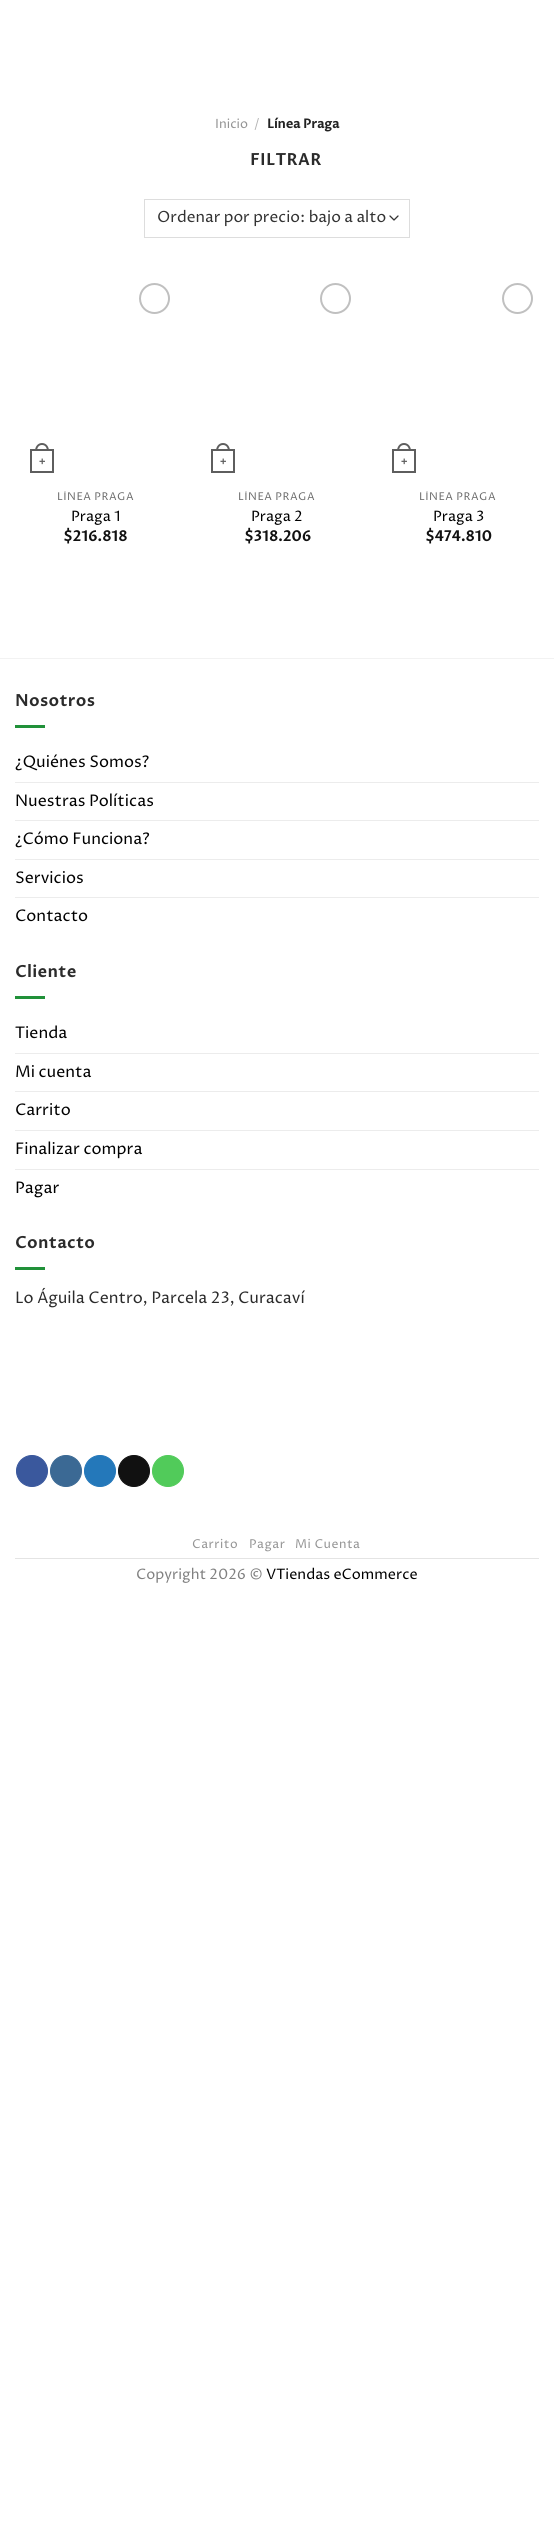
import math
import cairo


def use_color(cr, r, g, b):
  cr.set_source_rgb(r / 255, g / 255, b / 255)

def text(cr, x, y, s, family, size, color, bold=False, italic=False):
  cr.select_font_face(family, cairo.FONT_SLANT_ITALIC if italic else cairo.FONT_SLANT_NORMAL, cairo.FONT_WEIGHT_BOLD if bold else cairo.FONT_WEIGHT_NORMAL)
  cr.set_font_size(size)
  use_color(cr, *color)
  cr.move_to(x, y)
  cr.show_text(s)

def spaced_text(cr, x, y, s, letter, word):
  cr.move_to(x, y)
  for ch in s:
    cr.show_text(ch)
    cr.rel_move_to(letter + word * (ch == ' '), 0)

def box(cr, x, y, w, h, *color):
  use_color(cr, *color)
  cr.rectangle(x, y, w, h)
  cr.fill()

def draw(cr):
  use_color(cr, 255, 255, 255)
  cr.paint()
  cr.new_path()
  cr.move_to(390, 216)
  cr.line_to(394, 220)
  cr.line_to(398, 216)
  use_color(cr, 51, 51, 51)
  cr.set_line_width(1.3)
  cr.set_line_cap(cairo.LINE_CAP_ROUND)
  cr.set_line_join(cairo.LINE_JOIN_ROUND)
  cr.stroke()
  cr.rectangle(144.5, 199.5, 265, 38)
  use_color(cr, 221, 221, 221)
  cr.set_line_width(1)
  cr.set_line_cap(cairo.LINE_CAP_BUTT)
  cr.set_line_join(cairo.LINE_JOIN_MITER)
  cr.stroke()
  cr.arc(154.5, 298.5, 14.5, 0, 2 * math.pi)
  use_color(cr, 192, 192, 192)
  cr.set_line_width(2)
  cr.stroke()
  cr.rectangle(31, 450, 22, 22)
  use_color(cr, 94, 94, 94)
  cr.stroke()
  cr.set_fill_rule(cairo.FILL_RULE_EVEN_ODD)
  cr.new_path()
  cr.move_to(42, 443)
  cr.curve_to(46.5, 443, 49, 447, 49, 451)
  cr.line_to(35, 451)
  cr.curve_to(35, 447, 37.5, 443, 42, 443)
  cr.close_path()
  cr.move_to(42, 445)
  cr.curve_to(45.5, 445, 47, 448, 47, 451)
  cr.line_to(37, 451)
  cr.curve_to(37, 448, 38.5, 445, 42, 445)
  cr.close_path()
  cr.fill()
  cr.arc(335.5, 298.5, 14.5, 0, 2 * math.pi)
  use_color(cr, 192, 192, 192)
  cr.stroke()
  cr.rectangle(212, 450, 22, 22)
  use_color(cr, 94, 94, 94)
  cr.stroke()
  cr.new_path()
  cr.move_to(223, 443)
  cr.curve_to(227.5, 443, 230, 447, 230, 451)
  cr.line_to(216, 451)
  cr.curve_to(216, 447, 218.5, 443, 223, 443)
  cr.close_path()
  cr.move_to(223, 445)
  cr.curve_to(226.5, 445, 228, 448, 228, 451)
  cr.line_to(218, 451)
  cr.curve_to(218, 448, 219.5, 445, 223, 445)
  cr.close_path()
  cr.fill()
  cr.arc(517.5, 298.5, 14.5, 0, 2 * math.pi)
  use_color(cr, 192, 192, 192)
  cr.stroke()
  cr.rectangle(393, 450, 22, 22)
  use_color(cr, 94, 94, 94)
  cr.stroke()
  cr.new_path()
  cr.move_to(404, 443)
  cr.curve_to(408.5, 443, 411, 447, 411, 451)
  cr.line_to(397, 451)
  cr.curve_to(397, 447, 399.5, 443, 404, 443)
  cr.close_path()
  cr.move_to(404, 445)
  cr.curve_to(407.5, 445, 409, 448, 409, 451)
  cr.line_to(399, 451)
  cr.curve_to(399, 448, 400.5, 445, 404, 445)
  cr.close_path()
  cr.fill()
  box(cr, 0, 658, 554, 1, 242, 242, 242)
  box(cr, 15, 725, 30, 3, 33, 145, 57)
  box(cr, 15, 782, 524, 1, 236, 236, 236)
  box(cr, 15, 820, 524, 1, 236, 236, 236)
  box(cr, 15, 859, 524, 1, 236, 236, 236)
  box(cr, 15, 897, 524, 1, 236, 236, 236)
  box(cr, 15, 996, 30, 3, 33, 145, 57)
  box(cr, 15, 1053, 524, 1, 236, 236, 236)
  box(cr, 15, 1091, 524, 1, 236, 236, 236)
  box(cr, 15, 1130, 524, 1, 236, 236, 236)
  box(cr, 15, 1169, 524, 1, 236, 236, 236)
  box(cr, 15, 1267, 30, 3, 33, 145, 57)
  use_color(cr, 58, 88, 157)
  cr.arc(32, 1471, 15.5, 0, 2 * math.pi)
  cr.fill_preserve()
  cr.set_line_width(1)
  cr.stroke()
  use_color(cr, 59, 105, 148)
  cr.arc(66, 1471, 15.5, 0, 2 * math.pi)
  cr.fill_preserve()
  cr.stroke()
  use_color(cr, 36, 120, 186)
  cr.arc(100, 1471, 15.5, 0, 2 * math.pi)
  cr.fill_preserve()
  cr.stroke()
  use_color(cr, 17, 17, 17)
  cr.arc(134, 1471, 15.5, 0, 2 * math.pi)
  cr.fill_preserve()
  cr.stroke()
  use_color(cr, 81, 203, 90)
  cr.arc(168, 1471, 15.5, 0, 2 * math.pi)
  cr.fill_preserve()
  cr.stroke()
  box(cr, 15, 1558, 524, 1, 228, 228, 228)
  text(cr, 215, 128, "Inicio", "Proza Libre", 12.75, (148, 148, 148))
  text(cr, 254, 128, "/", "Proza Libre", 12.75, (178, 178, 178))
  text(cr, 267, 128, "Línea Praga", "Proza Libre", 12.75, (34, 34, 34), bold=True)
  cr.set_font_size(16)
  use_color(cr, 43, 43, 43)
  spaced_text(cr, 250, 165, "FILTRAR", 0.75, 0)
  text(cr, 157, 222, "Ordenar por precio: bajo a alto", "Proza Libre", 15.5, (51, 51, 51))
  text(cr, 39, 465, "+", "Liberation Sans", 11, (94, 94, 94), bold=True)
  cr.save()
  cr.set_fill_rule(cairo.FILL_RULE_WINDING)
  cr.rectangle(25, 491, 142, 13)
  cr.clip()
  cr.select_font_face("Proza Libre")
  cr.set_font_size(10.75)
  use_color(cr, 107, 107, 107)
  spaced_text(cr, 57, 500, "LÍNEA PRAGA", 0.5, 0)
  cr.restore()
  text(cr, 71, 521, "Praga 1", "Proza Libre", 14.4, (0, 0, 0))
  text(cr, 63, 541, "$216.818", "Proza Libre", 14.4, (17, 17, 17), bold=True)
  text(cr, 220, 465, "+", "Liberation Sans", 11, (94, 94, 94), bold=True)
  cr.save()
  cr.set_fill_rule(cairo.FILL_RULE_WINDING)
  cr.rectangle(206, 491, 142, 13)
  cr.clip()
  cr.select_font_face("Proza Libre")
  cr.set_font_size(10.75)
  use_color(cr, 107, 107, 107)
  spaced_text(cr, 238, 500, "LÍNEA PRAGA", 0.5, 0)
  cr.restore()
  text(cr, 251, 521, "Praga 2", "Proza Libre", 14.4, (0, 0, 0))
  text(cr, 244, 541, "$318.206", "Proza Libre", 14.4, (17, 17, 17), bold=True)
  text(cr, 401, 465, "+", "Liberation Sans", 11, (94, 94, 94), bold=True)
  cr.save()
  cr.set_fill_rule(cairo.FILL_RULE_WINDING)
  cr.rectangle(387, 491, 142, 13)
  cr.clip()
  cr.select_font_face("Proza Libre")
  cr.set_font_size(10.75)
  use_color(cr, 107, 107, 107)
  spaced_text(cr, 419, 500, "LÍNEA PRAGA", 0.5, 0)
  cr.restore()
  text(cr, 433, 521, "Praga 3", "Proza Libre", 14.4, (0, 0, 0))
  text(cr, 425, 541, "$474.810", "Proza Libre", 14.4, (17, 17, 17), bold=True)
  cr.set_font_size(16)
  use_color(cr, 43, 43, 43)
  spaced_text(cr, 15, 706, "Nosotros", 0.75, 0)
  text(cr, 15, 767, "¿Quiénes Somos?", "Proza Libre", 16, (0, 0, 0))
  text(cr, 15, 806, "Nuestras Políticas", "Proza Libre", 16, (0, 0, 0))
  text(cr, 15, 844, "¿Cómo Funciona?", "Proza Libre", 16, (0, 0, 0))
  text(cr, 15, 883, "Servicios", "Proza Libre", 16, (0, 0, 0))
  text(cr, 15, 921, "Contacto", "Proza Libre", 16, (0, 0, 0))
  cr.select_font_face("Proza Libre", cairo.FONT_SLANT_NORMAL, cairo.FONT_WEIGHT_BOLD)
  use_color(cr, 43, 43, 43)
  spaced_text(cr, 15, 977, "Cliente", 0.75, 0)
  text(cr, 15, 1038, "Tienda", "Proza Libre", 16, (0, 0, 0))
  text(cr, 15, 1077, "Mi cuenta", "Proza Libre", 16, (0, 0, 0))
  text(cr, 15, 1115, "Carrito", "Proza Libre", 16, (0, 0, 0))
  text(cr, 15, 1154, "Finalizar compra", "Proza Libre", 16, (0, 0, 0))
  text(cr, 15, 1193, "Pagar", "Proza Libre", 16, (0, 0, 0))
  cr.select_font_face("Proza Libre", cairo.FONT_SLANT_NORMAL, cairo.FONT_WEIGHT_BOLD)
  use_color(cr, 43, 43, 43)
  spaced_text(cr, 15, 1248, "Contacto", 0.75, 0)
  text(cr, 15, 1303, "Lo Águila Centro, Parcela 23, Curacaví", "Proza Libre", 16, (43, 43, 43))
  cr.set_font_size(12.25)
  use_color(cr, 148, 148, 148)
  spaced_text(cr, 192, 1548, "Carrito", 0.5, 0)
  spaced_text(cr, 249, 1548, "Pagar", 0.5, 0)
  spaced_text(cr, 295, 1548, "Mi Cuenta", 0.5, 0)
  text(cr, 136, 1579, "Copyright 2026 ©", "Proza Libre", 14.4, (128, 128, 128))
  text(cr, 266, 1579, "VTiendas eCommerce", "Proza Libre", 14.4, (0, 0, 0))


surface = cairo.ImageSurface(cairo.FORMAT_RGB24, 554, 2543)
cr = cairo.Context(surface)
options = cairo.FontOptions()
options.set_hint_metrics(cairo.HINT_METRICS_OFF)
options.set_hint_style(cairo.HINT_STYLE_NONE)
cr.set_font_options(options)
cr.set_miter_limit(4)
draw(cr)
surface.write_to_png("out.png")
